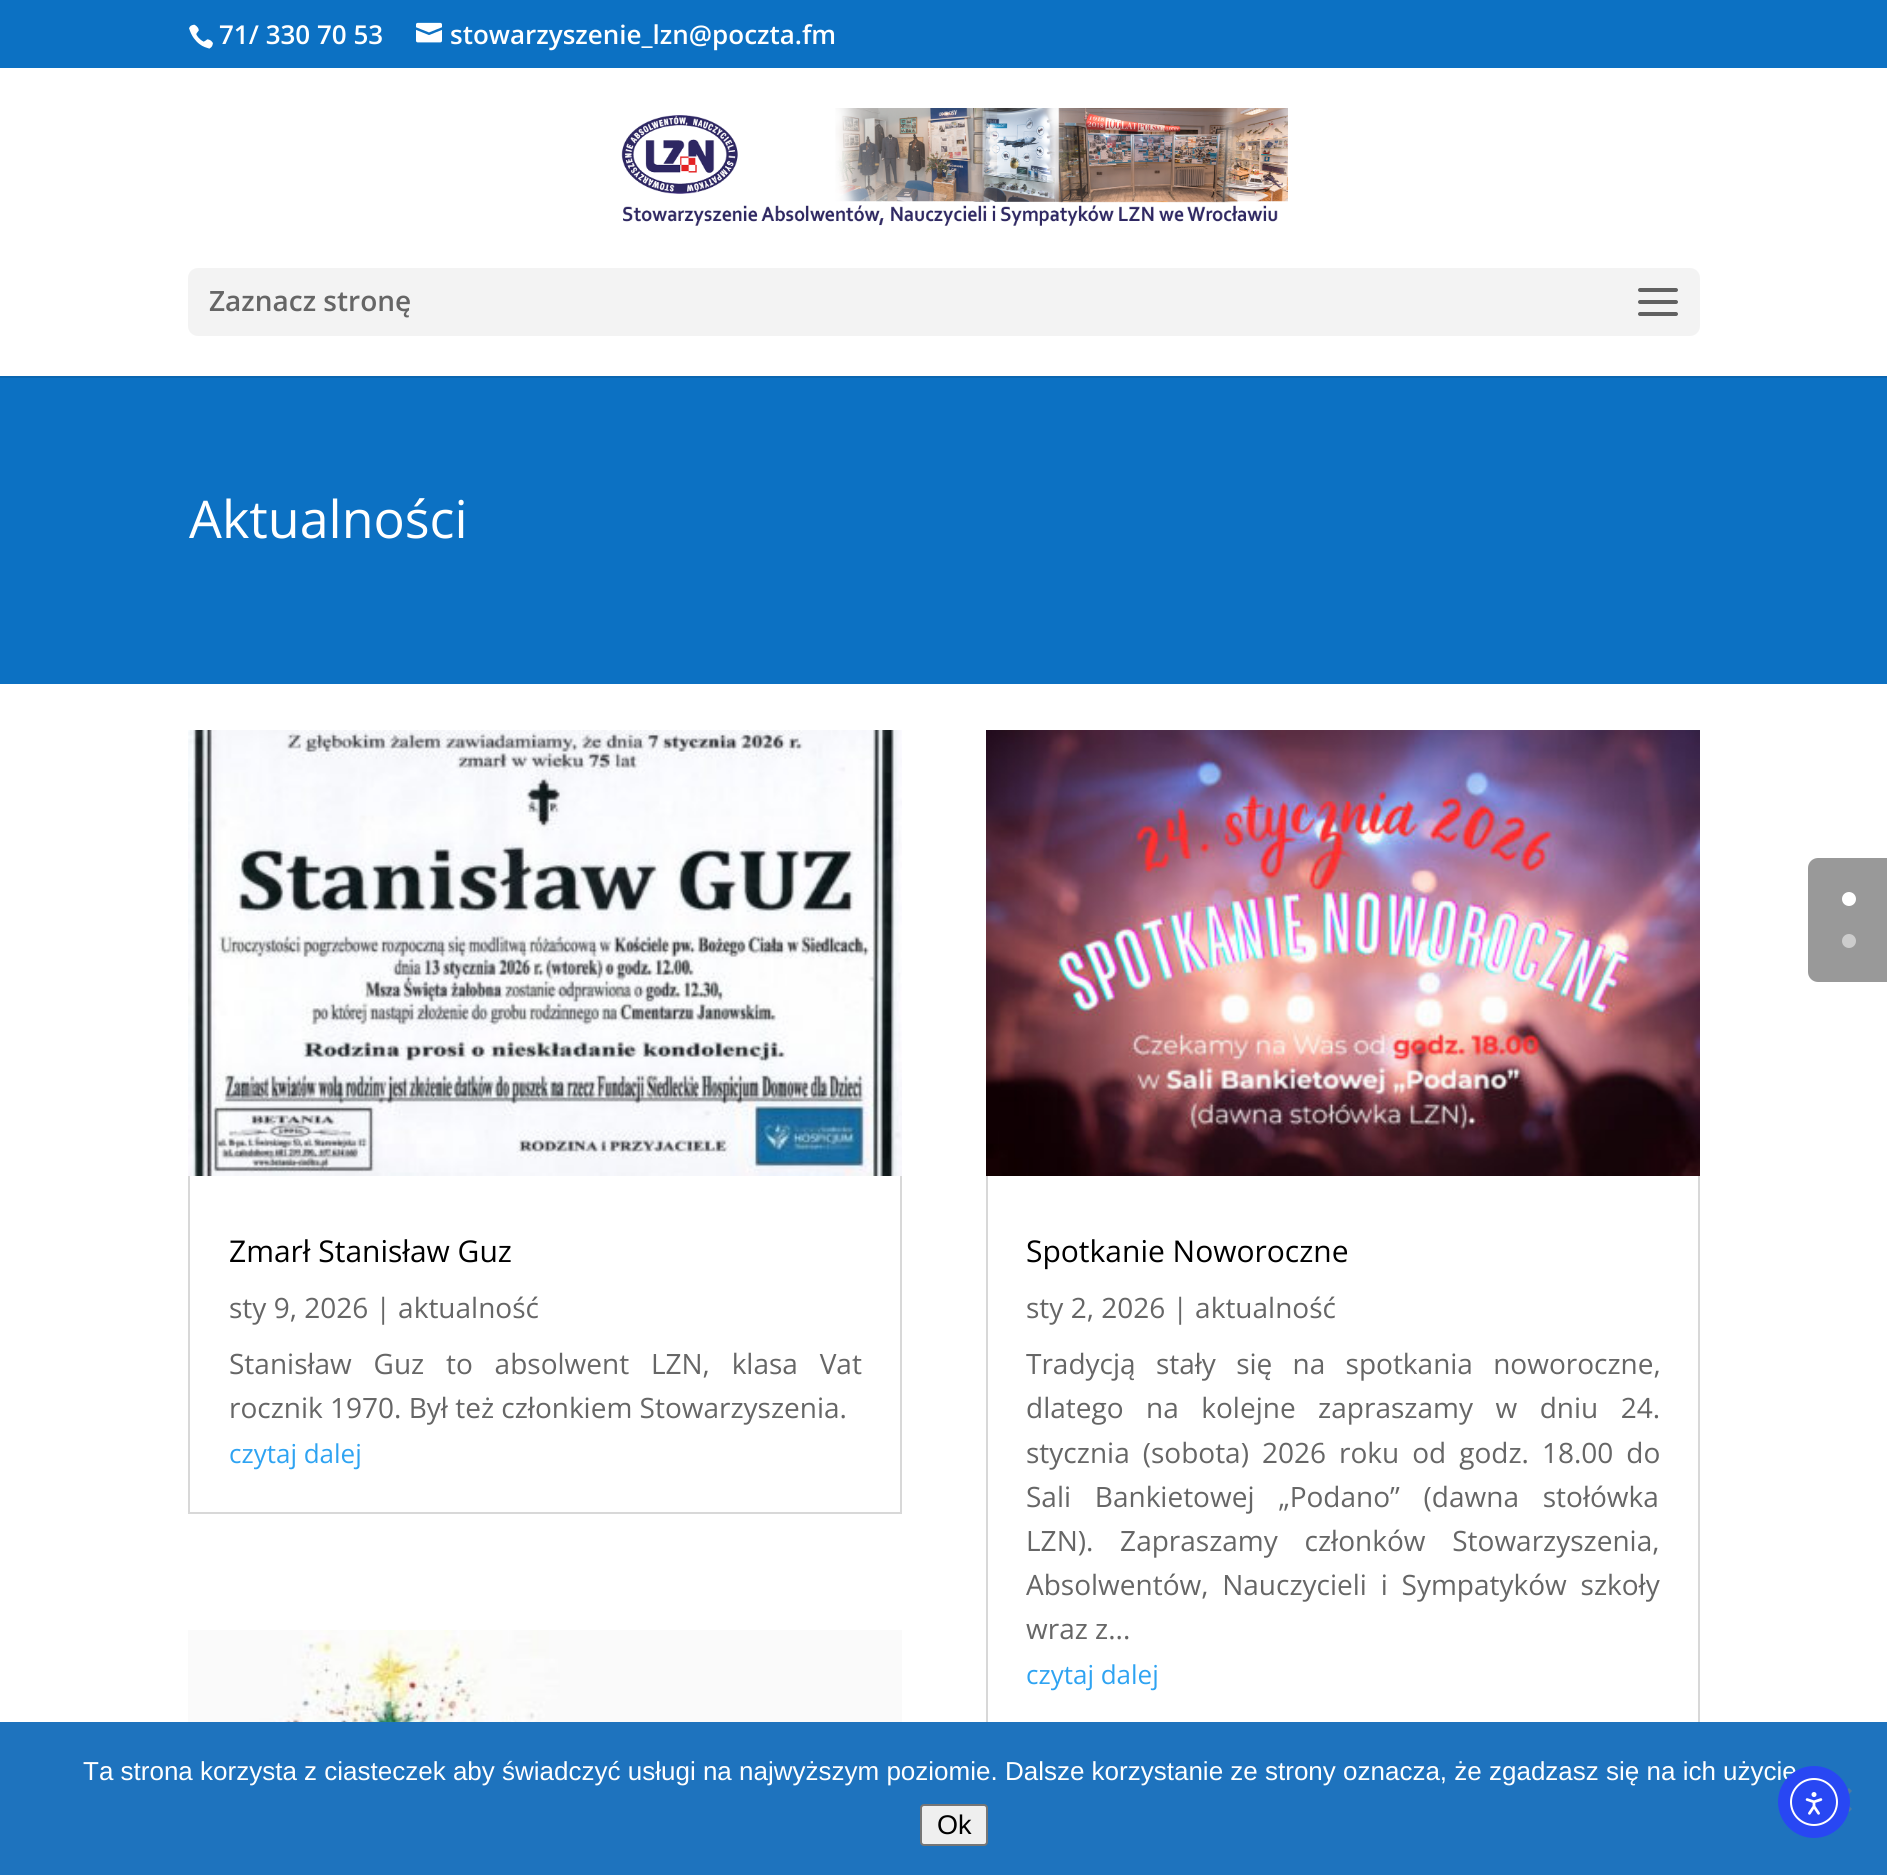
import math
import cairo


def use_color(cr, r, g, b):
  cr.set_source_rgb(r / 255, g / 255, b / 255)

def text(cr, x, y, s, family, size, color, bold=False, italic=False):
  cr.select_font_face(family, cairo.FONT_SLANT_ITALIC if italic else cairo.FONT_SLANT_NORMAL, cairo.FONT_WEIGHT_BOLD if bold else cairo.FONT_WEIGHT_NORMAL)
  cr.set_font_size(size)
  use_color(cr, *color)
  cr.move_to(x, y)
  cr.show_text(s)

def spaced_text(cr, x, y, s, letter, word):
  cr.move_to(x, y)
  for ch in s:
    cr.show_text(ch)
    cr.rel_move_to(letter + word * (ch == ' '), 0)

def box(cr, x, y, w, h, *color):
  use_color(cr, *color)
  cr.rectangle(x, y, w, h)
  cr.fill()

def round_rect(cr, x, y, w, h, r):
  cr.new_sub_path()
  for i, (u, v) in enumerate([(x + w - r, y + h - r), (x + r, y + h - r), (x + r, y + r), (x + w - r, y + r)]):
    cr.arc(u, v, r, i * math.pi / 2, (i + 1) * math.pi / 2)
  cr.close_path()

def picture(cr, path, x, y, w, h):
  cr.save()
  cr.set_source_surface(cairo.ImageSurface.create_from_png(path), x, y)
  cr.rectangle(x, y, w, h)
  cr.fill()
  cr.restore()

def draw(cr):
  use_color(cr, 12, 113, 195)
  cr.paint()
  picture(cr, "img_01.png", 189, 24, 24, 25)
  picture(cr, "img_02.png", 416, 22, 26, 21)
  box(cr, 0, 376, 1887, 2, 11, 102, 176)
  box(cr, 0, 68, 1887, 308, 255, 255, 255)
  picture(cr, "img_03.png", 621, 108, 667, 118)
  use_color(cr, 243, 243, 243)
  round_rect(cr, 188, 268, 1512, 68, 10)
  cr.fill()
  picture(cr, "img_04.png", 1638, 288, 40, 28)
  box(cr, 0, 684, 1887, 1038, 255, 255, 255)
  cr.rectangle(189, 731, 712, 782)
  use_color(cr, 216, 216, 216)
  cr.stroke()
  picture(cr, "img_05.png", 188, 730, 714, 446)
  picture(cr, "img_06.png", 188, 1630, 714, 92)
  cr.rectangle(987, 731, 712, 1004)
  cr.stroke()
  picture(cr, "img_07.png", 986, 730, 714, 446)
  use_color(cr, 153, 153, 153)
  cr.new_path()
  cr.move_to(1818, 858)
  cr.line_to(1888, 858)
  cr.line_to(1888, 982)
  cr.line_to(1818, 982)
  cr.curve_to(1812.5, 982, 1808, 977.5, 1808, 972)
  cr.line_to(1808, 868)
  cr.curve_to(1808, 862.5, 1812.5, 858, 1818, 858)
  cr.close_path()
  cr.fill()
  use_color(cr, 255, 255, 255)
  cr.arc(1849, 899, 7, 0, 2 * math.pi)
  cr.fill()
  use_color(cr, 204, 204, 204)
  cr.arc(1849, 941, 7, 0, 2 * math.pi)
  cr.fill()
  box(cr, 0, 1722, 1887, 153, 30, 115, 190)
  use_color(cr, 79, 122, 159)
  cr.new_path()
  cr.move_to(1849, 1788)
  cr.line_to(1852, 1791)
  cr.line_to(1831, 1812)
  cr.line_to(1828, 1809)
  cr.close_path()
  cr.fill()
  cr.new_path()
  cr.move_to(1828, 1791)
  cr.line_to(1831, 1788)
  cr.line_to(1852, 1809)
  cr.line_to(1849, 1812)
  cr.close_path()
  cr.fill()
  use_color(cr, 239, 239, 239)
  round_rect(cr, 921, 1805, 66, 40, 3)
  cr.fill_preserve()
  use_color(cr, 118, 118, 118)
  cr.stroke()
  text(cr, 219, 44, "71/ 330 70 53", "Open Sans SemiBold", 26, (255, 255, 255))
  text(cr, 450, 44, "stowarzyszenie_lzn@poczta.fm", "Open Sans SemiBold", 26, (255, 255, 255))
  text(cr, 209, 311, "Zaznacz stronę", "Open Sans SemiBold", 28, (102, 102, 102))
  text(cr, 189, 538, "Aktualności", "Open Sans", 52, (255, 255, 255))
  text(cr, 229, 1262, "Zmarł Stanisław Guz", "Open Sans", 30, (0, 0, 0))
  text(cr, 229, 1318, "sty 9, 2026 | aktualność", "Open Sans", 28, (102, 102, 102))
  spaced_text(cr, 229, 1374, "Stanisław Guz to absolwent LZN, klasa Vat", 0, 14.5)
  text(cr, 229, 1418, "rocznik 1970. Był też członkiem Stowarzyszenia.", "Open Sans", 28, (102, 102, 102))
  text(cr, 229, 1463, "czytaj dalej", "Open Sans", 26, (46, 163, 242))
  text(cr, 1026, 1262, "Spotkanie Noworoczne", "Open Sans", 30, (0, 0, 0))
  text(cr, 1026, 1318, "sty 2, 2026 | aktualność", "Open Sans", 28, (102, 102, 102))
  spaced_text(cr, 1026, 1374, "Tradycją stały się na spotkania noworoczne,", 0, 13)
  spaced_text(cr, 1026, 1418, "dlatego na kolejne zapraszamy w dniu 24.", 0, 15.25)
  spaced_text(cr, 1026, 1463, "stycznia (sobota) 2026 roku od godz. 18.00 do", 0, 5.75)
  spaced_text(cr, 1026, 1507, "Sali Bankietowej „Podano” (dawna stołówka", 0, 16.5)
  spaced_text(cr, 1026, 1551, "LZN). Zapraszamy członków Stowarzyszenia,", 0, 19.5)
  spaced_text(cr, 1026, 1595, "Absolwentów, Nauczycieli i Sympatyków szkoły", 0, 6.5)
  text(cr, 1026, 1639, "wraz z...", "Open Sans", 28, (102, 102, 102))
  text(cr, 1026, 1684, "czytaj dalej", "Open Sans", 26, (46, 163, 242))
  text(cr, 83, 1780, "Ta strona korzysta z ciasteczek aby świadczyć usługi na najwyższym poziomie. Dalsze korzystanie ze strony oznacza, że zgadzasz się na ich użycie", "Liberation Sans", 26, (255, 255, 255))
  text(cr, 937, 1834, "Ok", "Liberation Sans", 27, (0, 0, 0))
  use_color(cr, 40, 71, 243)
  cr.new_path()
  cr.arc(1814, 1802, 36, 0, 2 * math.pi)
  cr.fill()
  cr.arc(1814, 1802, 23, 0, 2 * math.pi)
  use_color(cr, 255, 255, 255)
  cr.stroke()
  picture(cr, "img_08.png", 1805, 1792, 18, 23)


surface = cairo.ImageSurface(cairo.FORMAT_RGB24, 1887, 1875)
cr = cairo.Context(surface)
options = cairo.FontOptions()
options.set_hint_metrics(cairo.HINT_METRICS_OFF)
options.set_hint_style(cairo.HINT_STYLE_NONE)
cr.set_font_options(options)
cr.set_miter_limit(4)
draw(cr)
surface.write_to_png("out.png")
